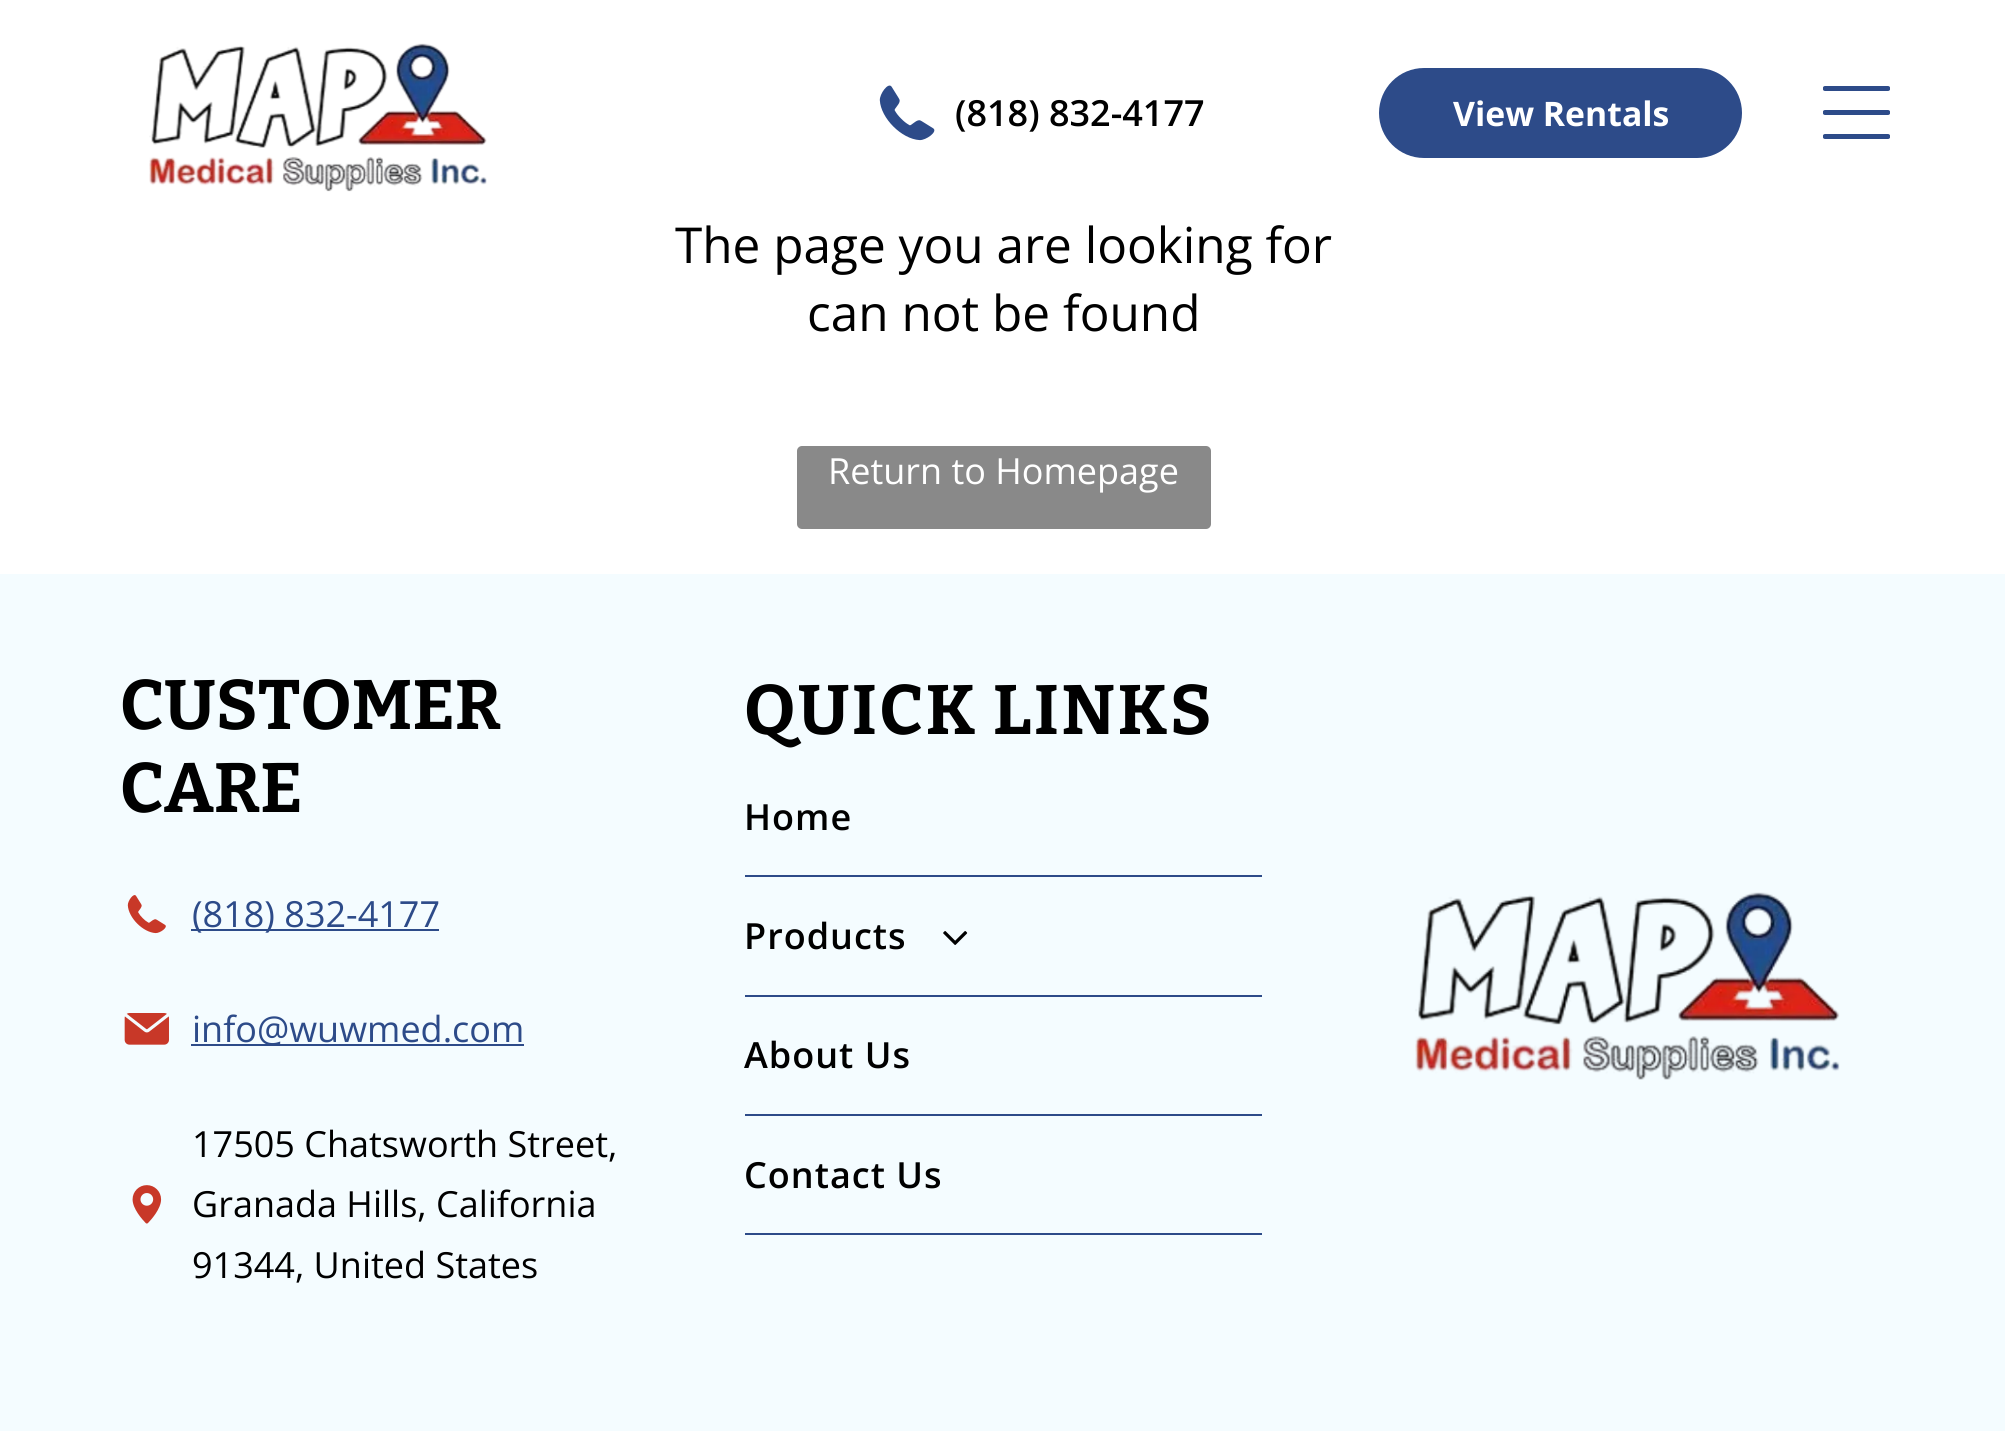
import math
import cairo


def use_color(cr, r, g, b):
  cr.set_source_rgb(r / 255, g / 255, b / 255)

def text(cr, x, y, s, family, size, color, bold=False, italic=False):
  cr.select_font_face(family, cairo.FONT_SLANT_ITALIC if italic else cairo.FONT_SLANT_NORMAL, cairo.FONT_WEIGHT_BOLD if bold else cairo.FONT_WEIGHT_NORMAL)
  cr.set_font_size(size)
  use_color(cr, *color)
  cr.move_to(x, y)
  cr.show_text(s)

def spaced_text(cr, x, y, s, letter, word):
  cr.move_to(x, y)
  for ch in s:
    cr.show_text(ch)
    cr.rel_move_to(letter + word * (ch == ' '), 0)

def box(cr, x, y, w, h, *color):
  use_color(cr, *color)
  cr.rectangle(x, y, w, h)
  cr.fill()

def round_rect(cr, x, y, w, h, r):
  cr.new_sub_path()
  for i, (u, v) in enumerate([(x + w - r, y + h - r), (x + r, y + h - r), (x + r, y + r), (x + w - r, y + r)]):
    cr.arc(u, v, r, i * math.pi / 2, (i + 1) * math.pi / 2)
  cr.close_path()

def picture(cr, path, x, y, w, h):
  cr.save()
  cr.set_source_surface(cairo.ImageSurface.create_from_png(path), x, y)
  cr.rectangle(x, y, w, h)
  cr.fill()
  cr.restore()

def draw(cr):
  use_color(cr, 255, 255, 255)
  cr.paint()
  picture(cr, "img_01.png", 149, 43, 338, 149)
  picture(cr, "img_02.png", 879, 85, 56, 56)
  use_color(cr, 45, 75, 137)
  round_rect(cr, 1379, 68, 363, 90, 45)
  cr.fill()
  cr.save()
  cr.rectangle(1823, 79, 67, 67)
  cr.clip()
  cr.new_path()
  cr.move_to(1825, 86)
  cr.curve_to(1822, 86, 1822, 91, 1825, 91)
  cr.line_to(1888, 91)
  cr.curve_to(1891, 91, 1891, 86, 1888, 86)
  cr.close_path()
  cr.move_to(1825, 110)
  cr.curve_to(1822, 110, 1822, 115, 1825, 115)
  cr.line_to(1888, 115)
  cr.curve_to(1891, 115, 1891, 110, 1888, 110)
  cr.close_path()
  cr.move_to(1825, 134)
  cr.curve_to(1822, 134, 1822, 139, 1825, 139)
  cr.line_to(1888, 139)
  cr.curve_to(1891, 139, 1891, 134, 1888, 134)
  cr.close_path()
  cr.fill()
  cr.restore()
  use_color(cr, 137, 137, 137)
  round_rect(cr, 797, 446, 414, 83, 5)
  cr.fill()
  box(cr, 0, 574, 2005, 857, 244, 252, 255)
  picture(cr, "img_03.png", 127, 895, 39, 39)
  box(cr, 191, 929, 248, 2, 45, 75, 137)
  picture(cr, "img_04.png", 124, 1013, 45, 32)
  box(cr, 191, 1044, 333, 2, 45, 75, 137)
  picture(cr, "img_05.png", 132, 1185, 30, 39)
  box(cr, 745, 875, 517, 2, 45, 75, 137)
  picture(cr, "img_06.png", 943, 931, 25, 14)
  box(cr, 745, 995, 517, 2, 45, 75, 137)
  box(cr, 745, 1114, 517, 2, 45, 75, 137)
  box(cr, 745, 1233, 517, 2, 45, 75, 137)
  picture(cr, "img_07.png", 1415, 892, 425, 188)
  text(cr, 955, 126, "(818) 832-4177", "Open Sans SemiBold", 36, (0, 0, 0))
  text(cr, 1453, 126, "View Rentals", "Open Sans", 33.75, (255, 255, 255), bold=True)
  text(cr, 675, 263, "The page you are looking for", "Open Sans", 49.5, (0, 0, 0))
  text(cr, 807, 331, "can not be found", "Open Sans", 49.5, (0, 0, 0))
  text(cr, 828, 484, "Return to Homepage", "Open Sans", 36, (255, 255, 255))
  text(cr, 120, 729, "CUSTOMER", "Bitter", 69.75, (0, 0, 0), bold=True)
  text(cr, 120, 812, "CARE", "Bitter", 69.75, (0, 0, 0), bold=True)
  text(cr, 192, 927, "(818) 832-4177", "Open Sans", 36, (45, 75, 137))
  text(cr, 192, 1042, "info@wuwmed.com", "Open Sans", 36, (45, 75, 137))
  text(cr, 192, 1157, "17505 Chatsworth Street,", "Open Sans", 36, (0, 0, 0))
  text(cr, 192, 1217, "Granada Hills, California", "Open Sans", 36, (0, 0, 0))
  text(cr, 192, 1278, "91344, United States", "Open Sans", 36, (0, 0, 0))
  cr.select_font_face("Bitter", cairo.FONT_SLANT_NORMAL, cairo.FONT_WEIGHT_BOLD)
  cr.set_font_size(69.75)
  spaced_text(cr, 744, 734, "QUICK LINKS", 2.25, 0)
  cr.select_font_face("Open Sans SemiBold")
  cr.set_font_size(36)
  spaced_text(cr, 744, 830, "Home", 1, 0)
  spaced_text(cr, 744, 949, "Products", 1, 0)
  spaced_text(cr, 744, 1068, "About Us", 1, 0)
  spaced_text(cr, 744, 1188, "Contact Us", 1, 0)


surface = cairo.ImageSurface(cairo.FORMAT_RGB24, 2005, 1431)
cr = cairo.Context(surface)
options = cairo.FontOptions()
options.set_hint_metrics(cairo.HINT_METRICS_OFF)
options.set_hint_style(cairo.HINT_STYLE_NONE)
cr.set_font_options(options)
cr.set_miter_limit(4)
draw(cr)
surface.write_to_png("out.png")
